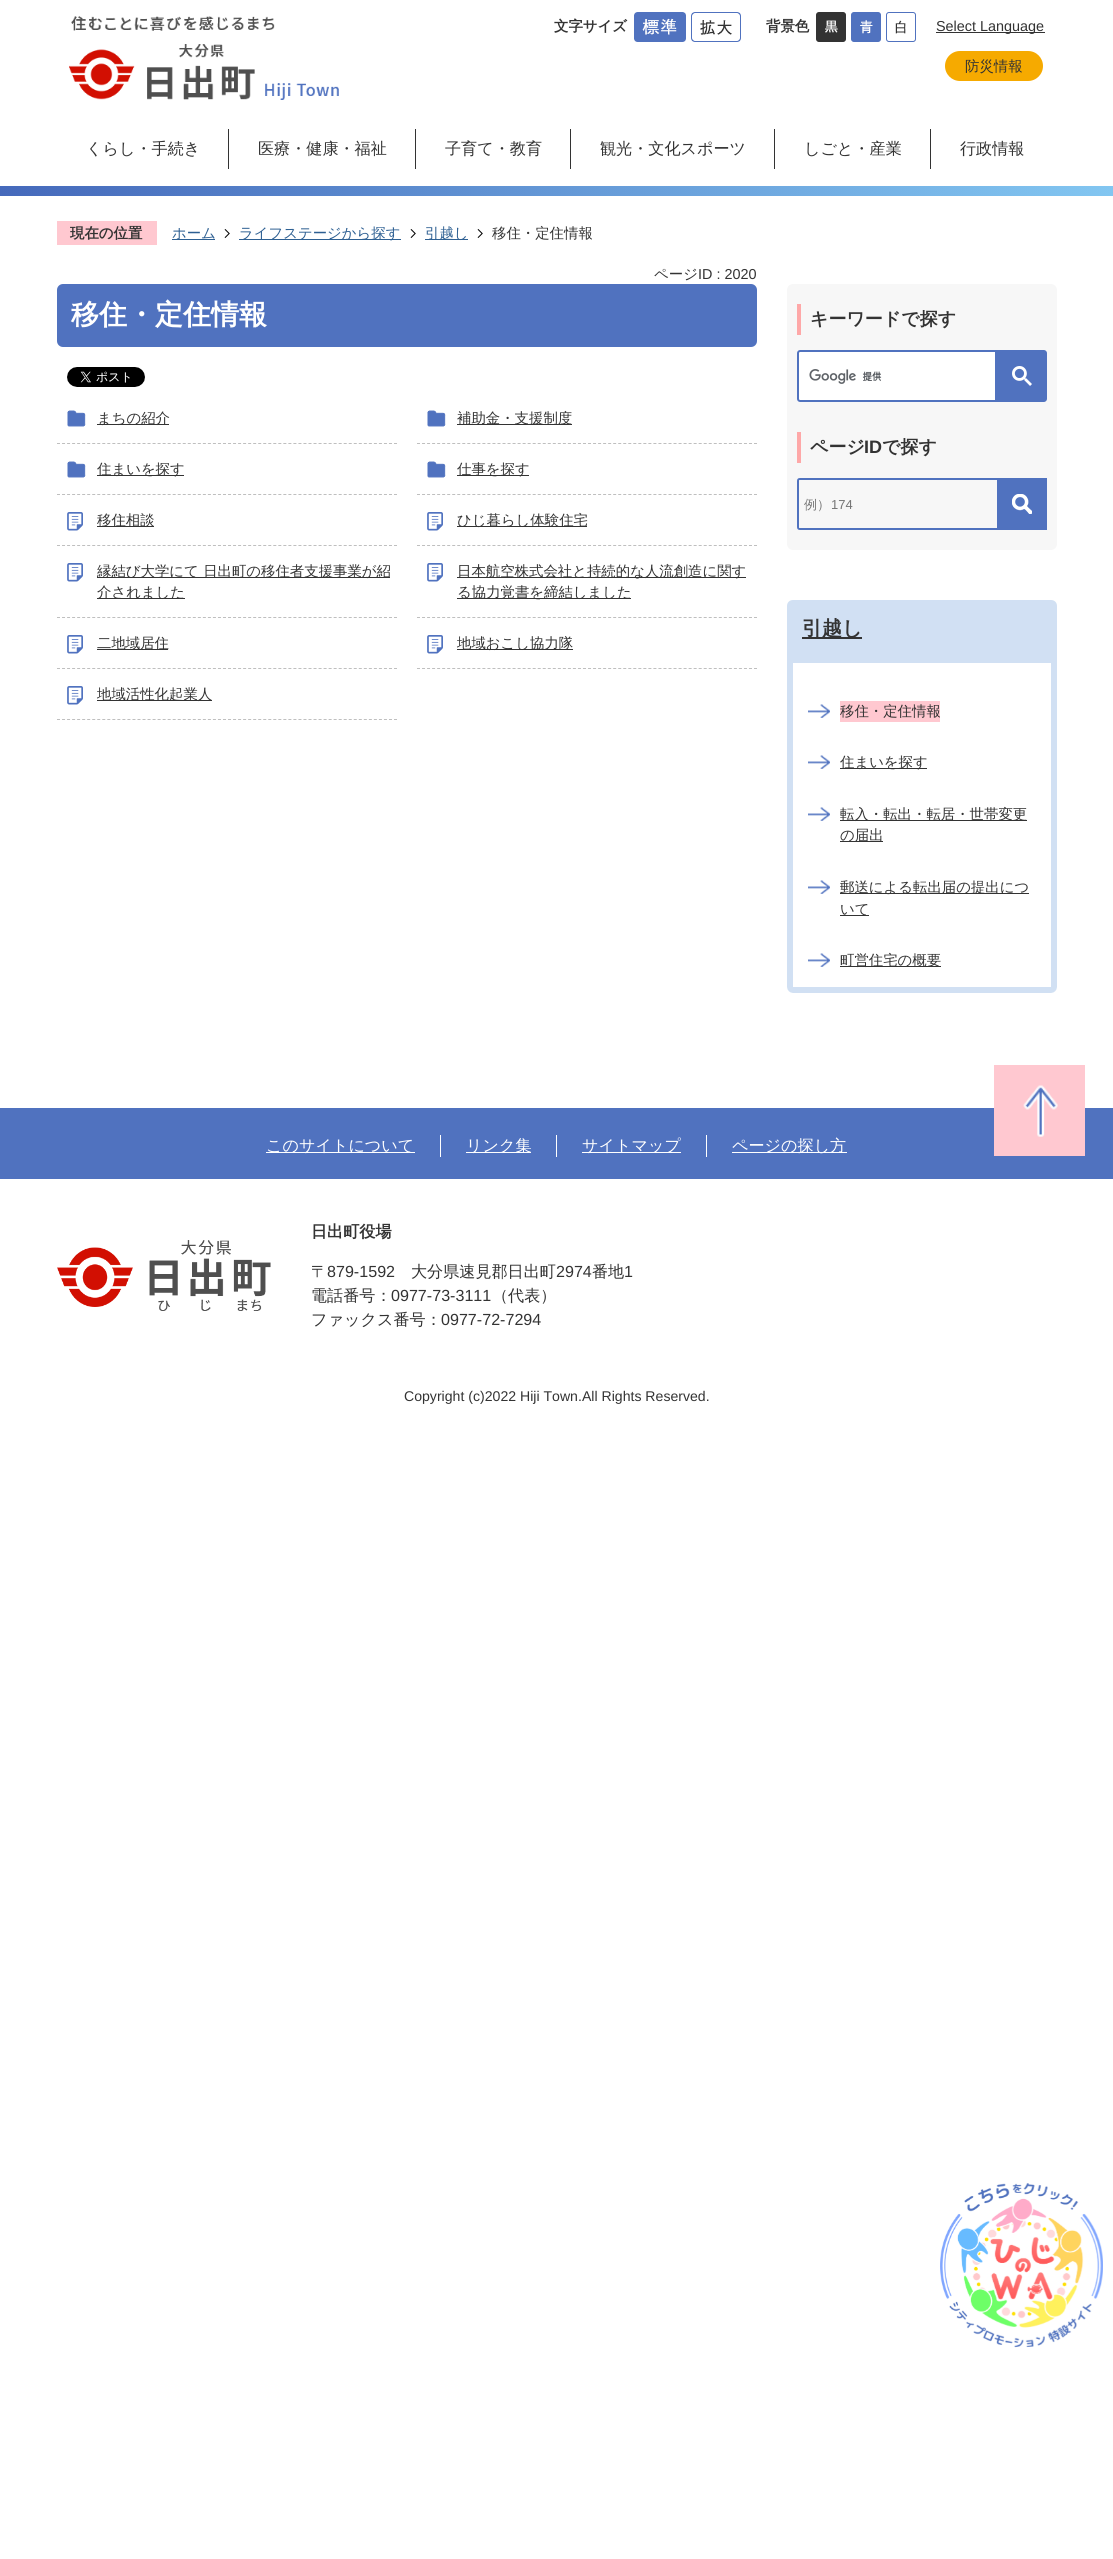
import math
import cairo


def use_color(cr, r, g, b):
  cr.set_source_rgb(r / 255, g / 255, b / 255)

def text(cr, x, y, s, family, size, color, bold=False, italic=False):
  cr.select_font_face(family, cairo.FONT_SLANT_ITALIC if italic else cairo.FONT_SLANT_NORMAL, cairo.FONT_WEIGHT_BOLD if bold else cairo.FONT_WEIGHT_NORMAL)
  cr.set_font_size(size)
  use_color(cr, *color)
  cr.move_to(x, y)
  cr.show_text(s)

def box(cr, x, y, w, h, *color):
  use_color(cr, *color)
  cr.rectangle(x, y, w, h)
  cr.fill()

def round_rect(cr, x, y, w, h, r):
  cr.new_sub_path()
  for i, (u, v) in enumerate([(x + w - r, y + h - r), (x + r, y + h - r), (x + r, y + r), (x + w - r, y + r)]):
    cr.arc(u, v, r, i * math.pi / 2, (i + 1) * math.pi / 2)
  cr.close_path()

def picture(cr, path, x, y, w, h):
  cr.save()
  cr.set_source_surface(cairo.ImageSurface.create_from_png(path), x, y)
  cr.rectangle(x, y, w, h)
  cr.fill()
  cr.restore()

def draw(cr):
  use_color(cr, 255, 255, 255)
  cr.paint()
  picture(cr, "img_01.png", 0, 186, 1113, 10)
  picture(cr, "img_02.png", 69, 16, 270, 84)
  picture(cr, "img_03.png", 634, 12, 52, 30)
  picture(cr, "img_04.png", 691, 12, 50, 30)
  picture(cr, "img_05.png", 816, 12, 30, 30)
  picture(cr, "img_06.png", 851, 12, 30, 30)
  picture(cr, "img_07.png", 886, 12, 30, 30)
  box(cr, 936, 32, 109, 1, 51, 51, 51)
  use_color(cr, 246, 170, 0)
  round_rect(cr, 944, 50, 100, 32, 16)
  cr.fill_preserve()
  use_color(cr, 255, 255, 255)
  cr.stroke()
  box(cr, 228, 129, 1, 40, 51, 51, 51)
  box(cr, 415, 129, 1, 40, 51, 51, 51)
  box(cr, 570, 129, 1, 40, 51, 51, 51)
  box(cr, 774, 129, 1, 40, 51, 51, 51)
  box(cr, 930, 129, 1, 40, 51, 51, 51)
  box(cr, 57, 221, 100, 24, 255, 200, 208)
  box(cr, 172, 239, 43, 1, 45, 95, 146)
  picture(cr, "img_08.png", 224, 229, 6, 9)
  box(cr, 239, 239, 162, 1, 45, 95, 146)
  picture(cr, "img_08.png", 410, 229, 6, 9)
  box(cr, 425, 239, 43, 1, 45, 95, 146)
  picture(cr, "img_08.png", 477, 229, 6, 9)
  use_color(cr, 80, 114, 191)
  round_rect(cr, 57, 284, 700, 63, 6)
  cr.fill()
  picture(cr, "img_09.png", 67, 367, 78, 20)
  picture(cr, "img_10.png", 67, 410, 19, 17)
  cr.new_path()
  cr.move_to(57, 443.5)
  cr.line_to(397, 443.5)
  use_color(cr, 191, 191, 191)
  cr.set_line_width(1)
  cr.set_dash([3, 2.03])
  cr.stroke()
  box(cr, 97, 424, 72, 1, 51, 51, 51)
  picture(cr, "img_10.png", 427, 410, 19, 17)
  cr.new_path()
  cr.move_to(417, 443.5)
  cr.line_to(757, 443.5)
  use_color(cr, 191, 191, 191)
  cr.stroke()
  box(cr, 457, 424, 115, 1, 51, 51, 51)
  picture(cr, "img_10.png", 67, 461, 19, 17)
  cr.new_path()
  cr.move_to(57, 494.5)
  cr.line_to(397, 494.5)
  use_color(cr, 191, 191, 191)
  cr.stroke()
  box(cr, 97, 475, 87, 1, 51, 51, 51)
  picture(cr, "img_10.png", 427, 461, 19, 17)
  cr.new_path()
  cr.move_to(417, 494.5)
  cr.line_to(757, 494.5)
  use_color(cr, 191, 191, 191)
  cr.stroke()
  box(cr, 457, 475, 72, 1, 51, 51, 51)
  picture(cr, "img_11.png", 67, 512, 16, 19)
  cr.new_path()
  cr.move_to(57, 545.5)
  cr.line_to(397, 545.5)
  use_color(cr, 191, 191, 191)
  cr.stroke()
  box(cr, 97, 526, 57, 1, 51, 51, 51)
  picture(cr, "img_11.png", 427, 512, 16, 19)
  cr.new_path()
  cr.move_to(417, 545.5)
  cr.line_to(757, 545.5)
  use_color(cr, 191, 191, 191)
  cr.stroke()
  box(cr, 457, 526, 130, 1, 51, 51, 51)
  picture(cr, "img_11.png", 67, 563, 16, 19)
  cr.new_path()
  cr.move_to(57, 617.5)
  cr.line_to(397, 617.5)
  use_color(cr, 191, 191, 191)
  cr.stroke()
  box(cr, 97, 577, 293, 1, 51, 51, 51)
  box(cr, 97, 598, 88, 1, 51, 51, 51)
  picture(cr, "img_11.png", 427, 563, 16, 19)
  cr.new_path()
  cr.move_to(417, 617.5)
  cr.line_to(757, 617.5)
  use_color(cr, 191, 191, 191)
  cr.stroke()
  box(cr, 457, 577, 289, 1, 51, 51, 51)
  box(cr, 457, 598, 174, 1, 51, 51, 51)
  picture(cr, "img_11.png", 67, 635, 16, 19)
  cr.new_path()
  cr.move_to(57, 668.5)
  cr.line_to(397, 668.5)
  use_color(cr, 191, 191, 191)
  cr.stroke()
  box(cr, 97, 649, 71, 1, 51, 51, 51)
  picture(cr, "img_11.png", 427, 635, 16, 19)
  cr.new_path()
  cr.move_to(417, 668.5)
  cr.line_to(757, 668.5)
  use_color(cr, 191, 191, 191)
  cr.stroke()
  box(cr, 457, 649, 116, 1, 51, 51, 51)
  picture(cr, "img_11.png", 67, 686, 16, 19)
  cr.new_path()
  cr.move_to(57, 719.5)
  cr.line_to(397, 719.5)
  use_color(cr, 191, 191, 191)
  cr.stroke()
  box(cr, 97, 700, 115, 1, 51, 51, 51)
  use_color(cr, 247, 247, 247)
  round_rect(cr, 787, 284, 270, 266, 6)
  cr.fill()
  box(cr, 797, 304, 4, 31, 254, 168, 168)
  use_color(cr, 255, 255, 255)
  cr.new_path()
  cr.move_to(800, 351)
  cr.line_to(996, 351)
  cr.line_to(996, 401)
  cr.line_to(800, 401)
  cr.curve_to(799, 401, 798, 400, 798, 399)
  cr.line_to(798, 353)
  cr.curve_to(798, 352, 799, 351, 800, 351)
  cr.close_path()
  cr.fill_preserve()
  use_color(cr, 80, 114, 191)
  cr.set_line_width(2)
  cr.set_dash([])
  cr.stroke()
  picture(cr, "img_12.png", 809, 369, 73, 15)
  cr.new_path()
  cr.move_to(997, 350)
  cr.line_to(1044, 350)
  cr.curve_to(1045.5, 350, 1047, 351.5, 1047, 353)
  cr.line_to(1047, 399)
  cr.curve_to(1047, 400.5, 1045.5, 402, 1044, 402)
  cr.line_to(997, 402)
  cr.close_path()
  cr.fill()
  picture(cr, "img_13.png", 1012, 366, 20, 20)
  box(cr, 797, 432, 4, 31, 254, 168, 168)
  use_color(cr, 80, 114, 191)
  cr.set_fill_rule(cairo.FILL_RULE_EVEN_ODD)
  cr.new_path()
  cr.move_to(800, 478)
  cr.line_to(997, 478)
  cr.line_to(997, 530)
  cr.line_to(800, 530)
  cr.curve_to(798, 530, 797, 529, 797, 527)
  cr.line_to(797, 481)
  cr.curve_to(797, 479, 798, 478, 800, 478)
  cr.close_path()
  cr.move_to(800, 480)
  cr.line_to(997, 480)
  cr.line_to(997, 528)
  cr.line_to(800, 528)
  cr.curve_to(799, 528, 799, 528, 799, 527)
  cr.line_to(799, 481)
  cr.curve_to(799, 480, 799, 480, 800, 480)
  cr.close_path()
  cr.fill()
  box(cr, 997, 478, 50, 52, 80, 114, 191)
  picture(cr, "img_14.png", 1012, 494, 20, 20)
  use_color(cr, 209, 224, 243)
  cr.new_path()
  cr.move_to(793, 600)
  cr.line_to(1051, 600)
  cr.curve_to(1054.5, 600, 1057, 602.5, 1057, 606)
  cr.line_to(1057, 657)
  cr.line_to(787, 657)
  cr.line_to(787, 606)
  cr.curve_to(787, 602.5, 789.5, 600, 793, 600)
  cr.close_path()
  cr.fill()
  box(cr, 802, 637, 60, 2, 51, 51, 51)
  cr.new_path()
  cr.move_to(790, 660)
  cr.line_to(1054, 660)
  cr.line_to(1054, 987)
  cr.curve_to(1054, 988.5, 1052.5, 990, 1051, 990)
  cr.line_to(793, 990)
  cr.curve_to(791.5, 990, 790, 988.5, 790, 987)
  cr.close_path()
  use_color(cr, 209, 224, 243)
  cr.set_line_width(6)
  cr.stroke()
  picture(cr, "img_15.png", 808, 704, 22, 14)
  box(cr, 840, 701, 100, 21, 255, 200, 208)
  picture(cr, "img_15.png", 808, 755, 22, 14)
  box(cr, 840, 768, 87, 1, 51, 51, 51)
  picture(cr, "img_15.png", 808, 807, 22, 14)
  box(cr, 840, 820, 187, 1, 51, 51, 51)
  box(cr, 840, 841, 43, 1, 51, 51, 51)
  picture(cr, "img_15.png", 808, 880, 22, 14)
  box(cr, 840, 893, 189, 1, 51, 51, 51)
  box(cr, 840, 915, 29, 1, 51, 51, 51)
  picture(cr, "img_15.png", 808, 953, 22, 14)
  box(cr, 840, 966, 101, 1, 51, 51, 51)
  box(cr, 0, 1108, 1113, 71, 80, 114, 191)
  box(cr, 440, 1135, 1, 22, 255, 255, 255)
  box(cr, 266, 1152, 149, 1, 255, 255, 255)
  box(cr, 556, 1135, 1, 22, 255, 255, 255)
  box(cr, 466, 1152, 65, 1, 255, 255, 255)
  box(cr, 706, 1135, 1, 22, 255, 255, 255)
  box(cr, 582, 1152, 99, 1, 255, 255, 255)
  box(cr, 732, 1152, 115, 1, 255, 255, 255)
  picture(cr, "img_16.png", 994, 1065, 91, 91)
  picture(cr, "img_17.png", 57, 1240, 214, 71)
  picture(cr, "img_18.png", 940, 2183, 163, 165)
  text(cr, 554, 31, "文字サイズ", "WenQuanYi Zen Hei", 14.4, (51, 51, 51), bold=True)
  text(cr, 766, 31, "背景色", "WenQuanYi Zen Hei", 14.4, (51, 51, 51), bold=True)
  text(cr, 936, 31, "Select Language", "Liberation Sans", 14.4, (51, 51, 51))
  text(cr, 965, 71, "防災情報", "WenQuanYi Zen Hei Medium", 14.4, (51, 51, 51))
  text(cr, 86, 154, "くらし・手続き", "WenQuanYi Zen Hei Medium", 16.1, (51, 51, 51))
  text(cr, 258, 154, "医療・健康・福祉", "WenQuanYi Zen Hei Medium", 16.1, (51, 51, 51))
  text(cr, 445, 154, "子育て・教育", "WenQuanYi Zen Hei Medium", 16.1, (51, 51, 51))
  text(cr, 600, 154, "観光・文化スポーツ", "WenQuanYi Zen Hei Medium", 16.1, (51, 51, 51))
  text(cr, 804, 154, "しごと・産業", "WenQuanYi Zen Hei Medium", 16.1, (51, 51, 51))
  text(cr, 960, 154, "行政情報", "WenQuanYi Zen Hei Medium", 16.1, (51, 51, 51))
  text(cr, 70, 238, "現在の位置", "WenQuanYi Zen Hei", 14.4, (51, 51, 51), bold=True)
  text(cr, 172, 238, "ホーム", "WenQuanYi Zen Hei Medium", 14.4, (45, 95, 146))
  text(cr, 239, 238, "ライフステージから探す", "WenQuanYi Zen Hei Medium", 14.4, (45, 95, 146))
  text(cr, 425, 238, "引越し", "WenQuanYi Zen Hei Medium", 14.4, (45, 95, 146))
  text(cr, 492, 238, "移住・定住情報", "WenQuanYi Zen Hei Medium", 14.4, (51, 51, 51))
  text(cr, 654, 279, "ページ", "WenQuanYi Zen Hei Medium", 14.4, (51, 51, 51))
  text(cr, 698, 279, "ID : 2020", "Liberation Sans", 14.4, (51, 51, 51))
  text(cr, 71, 324, "移住・定住情報", "WenQuanYi Zen Hei", 28, (255, 255, 255), bold=True)
  text(cr, 97, 423, "まちの紹介", "WenQuanYi Zen Hei Medium", 14.4, (51, 51, 51))
  text(cr, 457, 423, "補助金・支援制度", "WenQuanYi Zen Hei Medium", 14.4, (51, 51, 51))
  text(cr, 97, 474, "住まいを探す", "WenQuanYi Zen Hei Medium", 14.4, (51, 51, 51))
  text(cr, 457, 474, "仕事を探す", "WenQuanYi Zen Hei Medium", 14.4, (51, 51, 51))
  text(cr, 97, 525, "移住相談", "WenQuanYi Zen Hei Medium", 14.4, (51, 51, 51))
  text(cr, 457, 525, "ひじ暮らし体験住宅", "WenQuanYi Zen Hei Medium", 14.4, (51, 51, 51))
  text(cr, 97, 576, "縁結び大学にて 日出町の移住者支援事業が紹", "WenQuanYi Zen Hei Medium", 14.4, (51, 51, 51))
  text(cr, 97, 597, "介されました", "WenQuanYi Zen Hei Medium", 14.4, (51, 51, 51))
  text(cr, 457, 576, "日本航空株式会社と持続的な人流創造に関す", "WenQuanYi Zen Hei Medium", 14.4, (51, 51, 51))
  text(cr, 457, 597, "る協力覚書を締結しました", "WenQuanYi Zen Hei Medium", 14.4, (51, 51, 51))
  text(cr, 97, 648, "二地域居住", "WenQuanYi Zen Hei Medium", 14.4, (51, 51, 51))
  text(cr, 457, 648, "地域おこし協力隊", "WenQuanYi Zen Hei Medium", 14.4, (51, 51, 51))
  text(cr, 97, 699, "地域活性化起業人", "WenQuanYi Zen Hei Medium", 14.4, (51, 51, 51))
  text(cr, 810, 325, "キーワードで探す", "WenQuanYi Zen Hei", 18, (51, 51, 51), bold=True)
  text(cr, 810, 453, "ページ", "WenQuanYi Zen Hei", 18, (51, 51, 51), bold=True)
  text(cr, 864, 453, "ID", "Liberation Sans", 18, (51, 51, 51), bold=True)
  text(cr, 882, 453, "で探す", "WenQuanYi Zen Hei", 18, (51, 51, 51), bold=True)
  text(cr, 804, 509, "例）", "WenQuanYi Zen Hei Medium", 13, (117, 117, 117))
  text(cr, 831, 509, "174", "Liberation Sans", 13, (117, 117, 117))
  text(cr, 802, 635, "引越し", "WenQuanYi Zen Hei", 20, (51, 51, 51), bold=True)
  text(cr, 840, 716, "移住・定住情報", "WenQuanYi Zen Hei Medium", 14.4, (51, 51, 51))
  text(cr, 840, 767, "住まいを探す", "WenQuanYi Zen Hei Medium", 14.4, (51, 51, 51))
  text(cr, 840, 819, "転入・転出・転居・世帯変更", "WenQuanYi Zen Hei Medium", 14.4, (51, 51, 51))
  text(cr, 840, 840, "の届出", "WenQuanYi Zen Hei Medium", 14.4, (51, 51, 51))
  text(cr, 840, 892, "郵送による転出届の提出につ", "WenQuanYi Zen Hei Medium", 14.4, (51, 51, 51))
  text(cr, 840, 914, "いて", "WenQuanYi Zen Hei Medium", 14.4, (51, 51, 51))
  text(cr, 840, 965, "町営住宅の概要", "WenQuanYi Zen Hei Medium", 14.4, (51, 51, 51))
  text(cr, 266, 1151, "このサイトについて", "WenQuanYi Zen Hei Medium", 16.1, (255, 255, 255))
  text(cr, 466, 1151, "リンク集", "WenQuanYi Zen Hei Medium", 16.1, (255, 255, 255))
  text(cr, 582, 1151, "サイトマップ", "WenQuanYi Zen Hei Medium", 16.1, (255, 255, 255))
  text(cr, 732, 1151, "ページの探し方", "WenQuanYi Zen Hei Medium", 16.1, (255, 255, 255))
  text(cr, 311, 1237, "日出町役場", "WenQuanYi Zen Hei", 16.1, (51, 51, 51), bold=True)
  text(cr, 311, 1277, "〒", "WenQuanYi Zen Hei Medium", 16.1, (51, 51, 51))
  text(cr, 327, 1277, "879-1592", "Liberation Sans", 16.1, (51, 51, 51))
  text(cr, 411, 1277, "大分県速見郡日出町", "WenQuanYi Zen Hei Medium", 16.1, (51, 51, 51))
  text(cr, 556, 1277, "2974", "Liberation Sans", 16.1, (51, 51, 51))
  text(cr, 592, 1277, "番地", "WenQuanYi Zen Hei Medium", 16.1, (51, 51, 51))
  text(cr, 624, 1277, "1", "Liberation Sans", 16.1, (51, 51, 51))
  text(cr, 311, 1301, "電話番号：", "WenQuanYi Zen Hei Medium", 16.1, (51, 51, 51))
  text(cr, 391, 1301, "0977-73-3111", "Liberation Sans", 16.1, (51, 51, 51))
  text(cr, 492, 1301, "（代表）", "WenQuanYi Zen Hei Medium", 16.1, (51, 51, 51))
  text(cr, 311, 1325, "ファックス番号：", "WenQuanYi Zen Hei Medium", 16.1, (51, 51, 51))
  text(cr, 441, 1325, "0977-72-7294", "Liberation Sans", 16.1, (51, 51, 51))
  text(cr, 404, 1401, "Copyright (c)2022 Hiji Town.All Rights Reserved.", "Liberation Sans", 14.1, (51, 51, 51))


surface = cairo.ImageSurface(cairo.FORMAT_RGB24, 1113, 2559)
cr = cairo.Context(surface)
options = cairo.FontOptions()
options.set_hint_metrics(cairo.HINT_METRICS_OFF)
options.set_hint_style(cairo.HINT_STYLE_NONE)
cr.set_font_options(options)
cr.set_miter_limit(4)
draw(cr)
surface.write_to_png("out.png")
